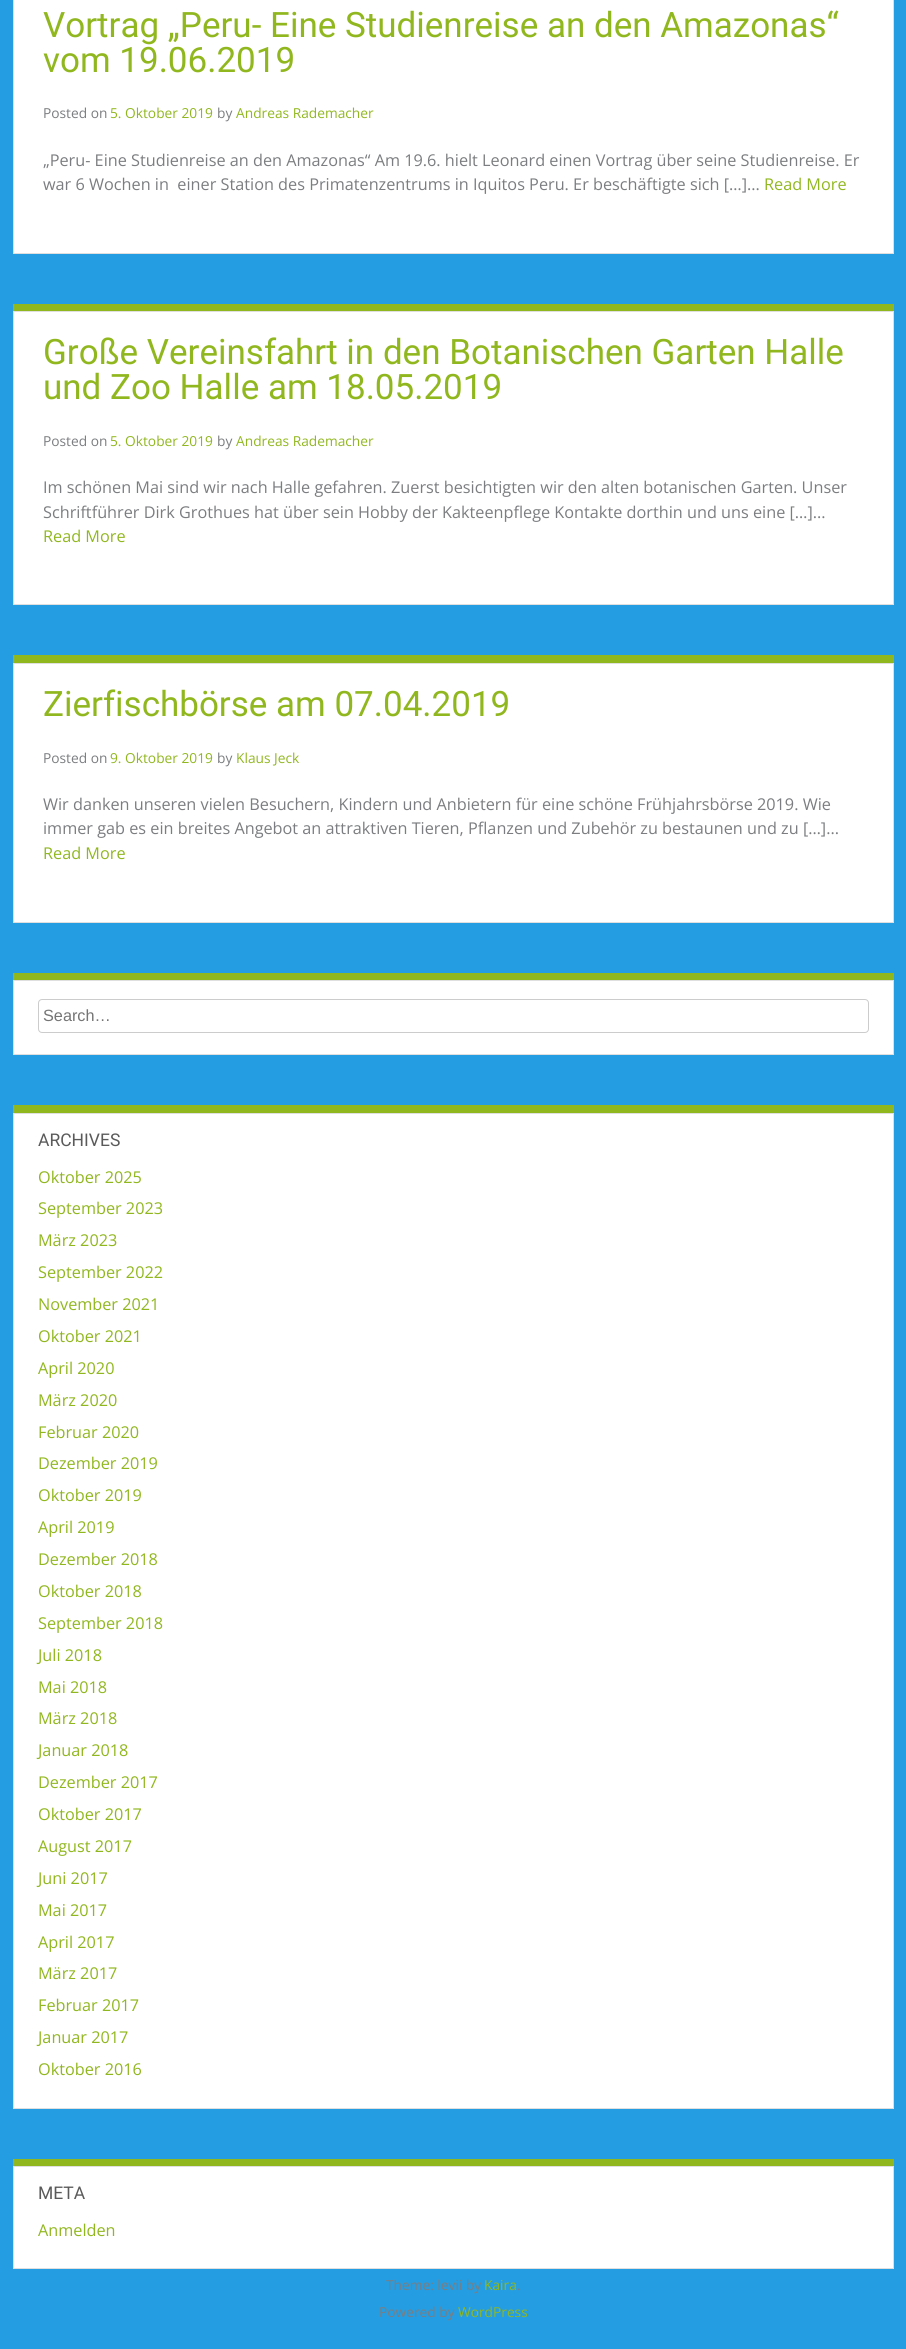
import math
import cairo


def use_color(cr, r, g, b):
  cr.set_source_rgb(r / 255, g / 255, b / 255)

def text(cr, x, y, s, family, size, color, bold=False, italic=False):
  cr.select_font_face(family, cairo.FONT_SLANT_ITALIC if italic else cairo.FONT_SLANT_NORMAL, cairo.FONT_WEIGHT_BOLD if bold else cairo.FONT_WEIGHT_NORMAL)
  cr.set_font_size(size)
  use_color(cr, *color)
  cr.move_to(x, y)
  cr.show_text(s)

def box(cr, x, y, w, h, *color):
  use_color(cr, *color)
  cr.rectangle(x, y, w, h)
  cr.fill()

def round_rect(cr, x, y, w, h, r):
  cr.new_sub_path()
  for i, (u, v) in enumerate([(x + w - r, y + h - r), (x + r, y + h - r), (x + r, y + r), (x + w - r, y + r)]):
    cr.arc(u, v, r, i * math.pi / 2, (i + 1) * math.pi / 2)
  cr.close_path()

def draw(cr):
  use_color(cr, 36, 157, 226)
  cr.paint()
  use_color(cr, 255, 255, 255)
  cr.rectangle(13.5, -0.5, 880, 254)
  cr.fill_preserve()
  use_color(cr, 223, 223, 223)
  cr.set_line_width(1)
  cr.stroke()
  use_color(cr, 255, 255, 255)
  cr.rectangle(13.5, 311.5, 880, 293)
  cr.fill_preserve()
  use_color(cr, 223, 223, 223)
  cr.stroke()
  box(cr, 13, 304, 881, 7, 145, 183, 31)
  use_color(cr, 255, 255, 255)
  cr.rectangle(13.5, 663.5, 880, 259)
  cr.fill_preserve()
  use_color(cr, 223, 223, 223)
  cr.stroke()
  box(cr, 13, 655, 881, 8, 145, 183, 31)
  use_color(cr, 255, 255, 255)
  cr.rectangle(13.5, 980.5, 880, 74)
  cr.fill_preserve()
  use_color(cr, 223, 223, 223)
  cr.stroke()
  box(cr, 13, 973, 881, 7, 145, 183, 31)
  round_rect(cr, 38.5, 999.5, 830, 33, 3.5)
  use_color(cr, 204, 204, 204)
  cr.stroke()
  use_color(cr, 255, 255, 255)
  cr.rectangle(13.5, 1113.5, 880, 995)
  cr.fill_preserve()
  use_color(cr, 223, 223, 223)
  cr.stroke()
  box(cr, 13, 1105, 881, 8, 145, 183, 31)
  use_color(cr, 255, 255, 255)
  cr.rectangle(13.5, 2166.5, 880, 102)
  cr.fill_preserve()
  use_color(cr, 223, 223, 223)
  cr.stroke()
  box(cr, 13, 2159, 881, 7, 145, 183, 31)
  text(cr, 43, 37, "Vortrag „Peru- Eine Studienreise an den Amazonas“", "Roboto", 35, (145, 183, 31))
  text(cr, 43, 72, "vom 19.06.2019", "Roboto", 35, (145, 183, 31))
  text(cr, 43, 118, "Posted on", "Open Sans", 13.75, (123, 125, 128))
  text(cr, 110, 118, "5. Oktober 2019", "Open Sans", 13.75, (145, 183, 31))
  text(cr, 217, 118, "by", "Open Sans", 13.75, (123, 125, 128))
  text(cr, 236, 118, "Andreas Rademacher", "Open Sans", 13.75, (145, 183, 31))
  text(cr, 43, 166, "„Peru- Eine Studienreise an den Amazonas“ Am 19.6. hielt Leonard einen Vortrag über seine Studienreise. Er", "Open Sans", 16.25, (123, 125, 128))
  text(cr, 43, 190, "war 6 Wochen in  einer Station des Primatenzentrums in Iquitos Peru. Er beschäftigte sich […]...", "Open Sans", 16.25, (123, 125, 128))
  text(cr, 764, 190, "Read More", "Open Sans", 16.25, (145, 183, 31))
  text(cr, 43, 364, "Große Vereinsfahrt in den Botanischen Garten Halle", "Roboto", 35, (145, 183, 31))
  text(cr, 43, 399, "und Zoo Halle am 18.05.2019", "Roboto", 35, (145, 183, 31))
  text(cr, 43, 446, "Posted on", "Open Sans", 13.75, (123, 125, 128))
  text(cr, 110, 446, "5. Oktober 2019", "Open Sans", 13.75, (145, 183, 31))
  text(cr, 217, 446, "by", "Open Sans", 13.75, (123, 125, 128))
  text(cr, 236, 446, "Andreas Rademacher", "Open Sans", 13.75, (145, 183, 31))
  text(cr, 43, 493, "Im schönen Mai sind wir nach Halle gefahren. Zuerst besichtigten wir den alten botanischen Garten. Unser", "Open Sans", 16.25, (123, 125, 128))
  text(cr, 43, 518, "Schriftführer Dirk Grothues hat über sein Hobby der Kakteenpflege Kontakte dorthin und uns eine […]...", "Open Sans", 16.25, (123, 125, 128))
  text(cr, 43, 542, "Read More", "Open Sans", 16.25, (145, 183, 31))
  text(cr, 43, 716, "Zierfischbörse am 07.04.2019", "Roboto", 35, (145, 183, 31))
  text(cr, 43, 763, "Posted on", "Open Sans", 13.75, (123, 125, 128))
  text(cr, 110, 763, "9. Oktober 2019", "Open Sans", 13.75, (145, 183, 31))
  text(cr, 217, 763, "by", "Open Sans", 13.75, (123, 125, 128))
  text(cr, 236, 763, "Klaus Jeck", "Open Sans", 13.75, (145, 183, 31))
  text(cr, 43, 810, "Wir danken unseren vielen Besuchern, Kindern und Anbietern für eine schöne Frühjahrsbörse 2019. Wie", "Open Sans", 16.25, (123, 125, 128))
  text(cr, 43, 834, "immer gab es ein breites Angebot an attraktiven Tieren, Pflanzen und Zubehör zu bestaunen und zu […]...", "Open Sans", 16.25, (123, 125, 128))
  text(cr, 43, 859, "Read More", "Open Sans", 16.25, (145, 183, 31))
  text(cr, 43, 1021, "Search…", "Liberation Sans", 16.25, (117, 117, 117))
  text(cr, 38, 1146, "ARCHIVES", "Roboto", 17.5, (90, 90, 90))
  text(cr, 38, 1183, "Oktober 2025", "Open Sans", 16.25, (145, 183, 31))
  text(cr, 38, 1214, "September 2023", "Open Sans", 16.25, (145, 183, 31))
  text(cr, 38, 1246, "März 2023", "Open Sans", 16.25, (145, 183, 31))
  text(cr, 38, 1278, "September 2022", "Open Sans", 16.25, (145, 183, 31))
  text(cr, 38, 1310, "November 2021", "Open Sans", 16.25, (145, 183, 31))
  text(cr, 38, 1342, "Oktober 2021", "Open Sans", 16.25, (145, 183, 31))
  text(cr, 38, 1374, "April 2020", "Open Sans", 16.25, (145, 183, 31))
  text(cr, 38, 1406, "März 2020", "Open Sans", 16.25, (145, 183, 31))
  text(cr, 38, 1438, "Februar 2020", "Open Sans", 16.25, (145, 183, 31))
  text(cr, 38, 1469, "Dezember 2019", "Open Sans", 16.25, (145, 183, 31))
  text(cr, 38, 1501, "Oktober 2019", "Open Sans", 16.25, (145, 183, 31))
  text(cr, 38, 1533, "April 2019", "Open Sans", 16.25, (145, 183, 31))
  text(cr, 38, 1565, "Dezember 2018", "Open Sans", 16.25, (145, 183, 31))
  text(cr, 38, 1597, "Oktober 2018", "Open Sans", 16.25, (145, 183, 31))
  text(cr, 38, 1629, "September 2018", "Open Sans", 16.25, (145, 183, 31))
  text(cr, 38, 1661, "Juli 2018", "Open Sans", 16.25, (145, 183, 31))
  text(cr, 38, 1693, "Mai 2018", "Open Sans", 16.25, (145, 183, 31))
  text(cr, 38, 1724, "März 2018", "Open Sans", 16.25, (145, 183, 31))
  text(cr, 38, 1756, "Januar 2018", "Open Sans", 16.25, (145, 183, 31))
  text(cr, 38, 1788, "Dezember 2017", "Open Sans", 16.25, (145, 183, 31))
  text(cr, 38, 1820, "Oktober 2017", "Open Sans", 16.25, (145, 183, 31))
  text(cr, 38, 1852, "August 2017", "Open Sans", 16.25, (145, 183, 31))
  text(cr, 38, 1884, "Juni 2017", "Open Sans", 16.25, (145, 183, 31))
  text(cr, 38, 1916, "Mai 2017", "Open Sans", 16.25, (145, 183, 31))
  text(cr, 38, 1948, "April 2017", "Open Sans", 16.25, (145, 183, 31))
  text(cr, 38, 1979, "März 2017", "Open Sans", 16.25, (145, 183, 31))
  text(cr, 38, 2011, "Februar 2017", "Open Sans", 16.25, (145, 183, 31))
  text(cr, 38, 2043, "Januar 2017", "Open Sans", 16.25, (145, 183, 31))
  text(cr, 38, 2075, "Oktober 2016", "Open Sans", 16.25, (145, 183, 31))
  text(cr, 38, 2199, "META", "Roboto", 17.5, (90, 90, 90))
  text(cr, 38, 2236, "Anmelden", "Open Sans", 16.25, (145, 183, 31))
  text(cr, 386, 2290, "Theme: levii by", "Open Sans", 13.75, (123, 125, 128))
  text(cr, 484, 2290, "Kaira", "Open Sans", 13.75, (145, 183, 31))
  text(cr, 517, 2290, ".", "Open Sans", 13.75, (123, 125, 128))
  text(cr, 379, 2317, "Powered by", "Open Sans", 13.75, (123, 125, 128))
  text(cr, 458, 2317, "WordPress", "Open Sans", 13.75, (145, 183, 31))


surface = cairo.ImageSurface(cairo.FORMAT_RGB24, 906, 2349)
cr = cairo.Context(surface)
options = cairo.FontOptions()
options.set_hint_metrics(cairo.HINT_METRICS_OFF)
options.set_hint_style(cairo.HINT_STYLE_NONE)
cr.set_font_options(options)
cr.set_miter_limit(4)
draw(cr)
surface.write_to_png("out.png")
